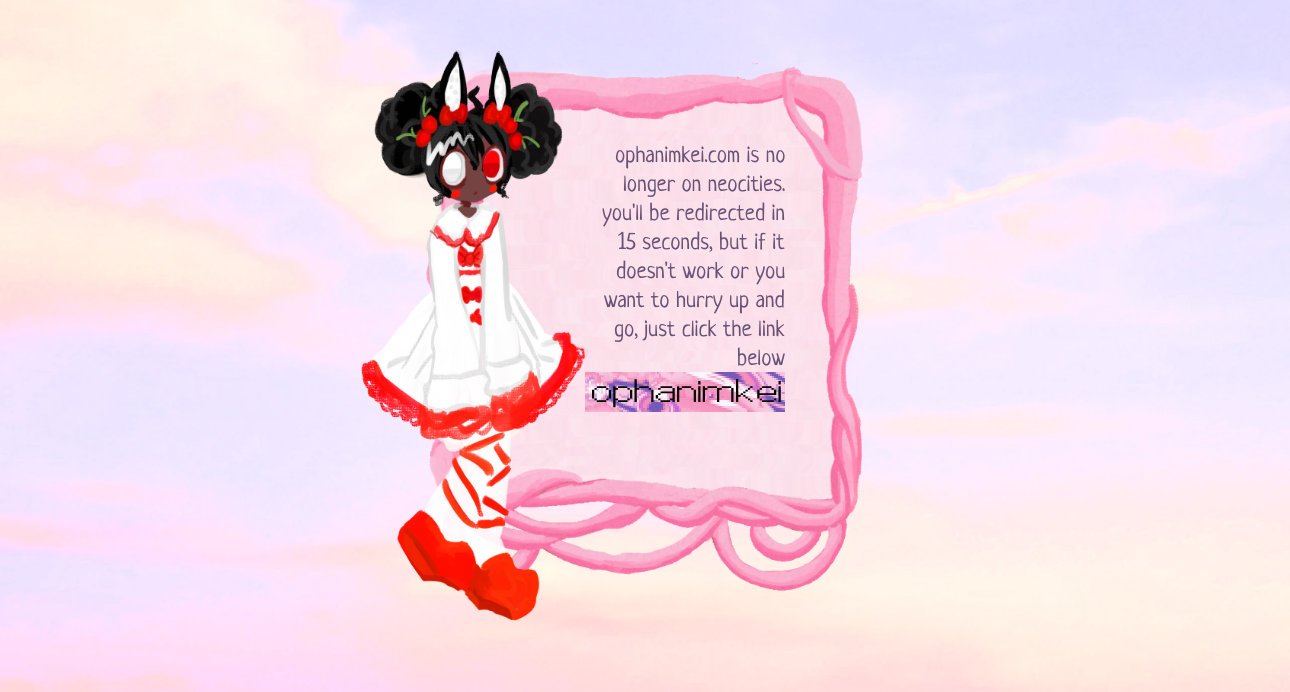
import math
import cairo


def use_color(cr, r, g, b):
  cr.set_source_rgb(r / 255, g / 255, b / 255)

def text(cr, x, y, s, family, size, color, bold=False, italic=False):
  cr.select_font_face(family, cairo.FONT_SLANT_ITALIC if italic else cairo.FONT_SLANT_NORMAL, cairo.FONT_WEIGHT_BOLD if bold else cairo.FONT_WEIGHT_NORMAL)
  cr.set_font_size(size)
  use_color(cr, *color)
  cr.move_to(x, y)
  cr.show_text(s)

def picture(cr, path, x, y, w, h):
  cr.save()
  cr.set_source_surface(cairo.ImageSurface.create_from_png(path), x, y)
  cr.rectangle(x, y, w, h)
  cr.fill()
  cr.restore()

def draw(cr):
  use_color(cr, 255, 255, 255)
  cr.paint()
  picture(cr, "img_01.png", 0, 0, 1290, 692)
  picture(cr, "img_02.png", 426, 63, 437, 528)
  picture(cr, "img_04.png", 585, 372, 200, 40)
  picture(cr, "img_03.png", 361, 50, 227, 571)
  text(cr, 615, 162, "ophanimkei.com is no", "Neucha", 23, (104, 82, 117))
  text(cr, 623, 191, "longer on neocities.", "Neucha", 23, (104, 82, 117))
  text(cr, 602, 220, "you'll be redirected in", "Neucha", 23, (104, 82, 117))
  text(cr, 618, 249, "15 seconds, but if it", "Neucha", 23, (104, 82, 117))
  text(cr, 616, 278, "doesn't work or you", "Neucha", 23, (104, 82, 117))
  text(cr, 604, 307, "want to hurry up and", "Neucha", 23, (104, 82, 117))
  text(cr, 614, 336, "go, just click the link", "Neucha", 23, (104, 82, 117))
  text(cr, 737, 365, "below", "Neucha", 23, (104, 82, 117))


surface = cairo.ImageSurface(cairo.FORMAT_RGB24, 1290, 692)
cr = cairo.Context(surface)
options = cairo.FontOptions()
options.set_hint_metrics(cairo.HINT_METRICS_OFF)
options.set_hint_style(cairo.HINT_STYLE_NONE)
cr.set_font_options(options)
cr.set_miter_limit(4)
draw(cr)
surface.write_to_png("out.png")
